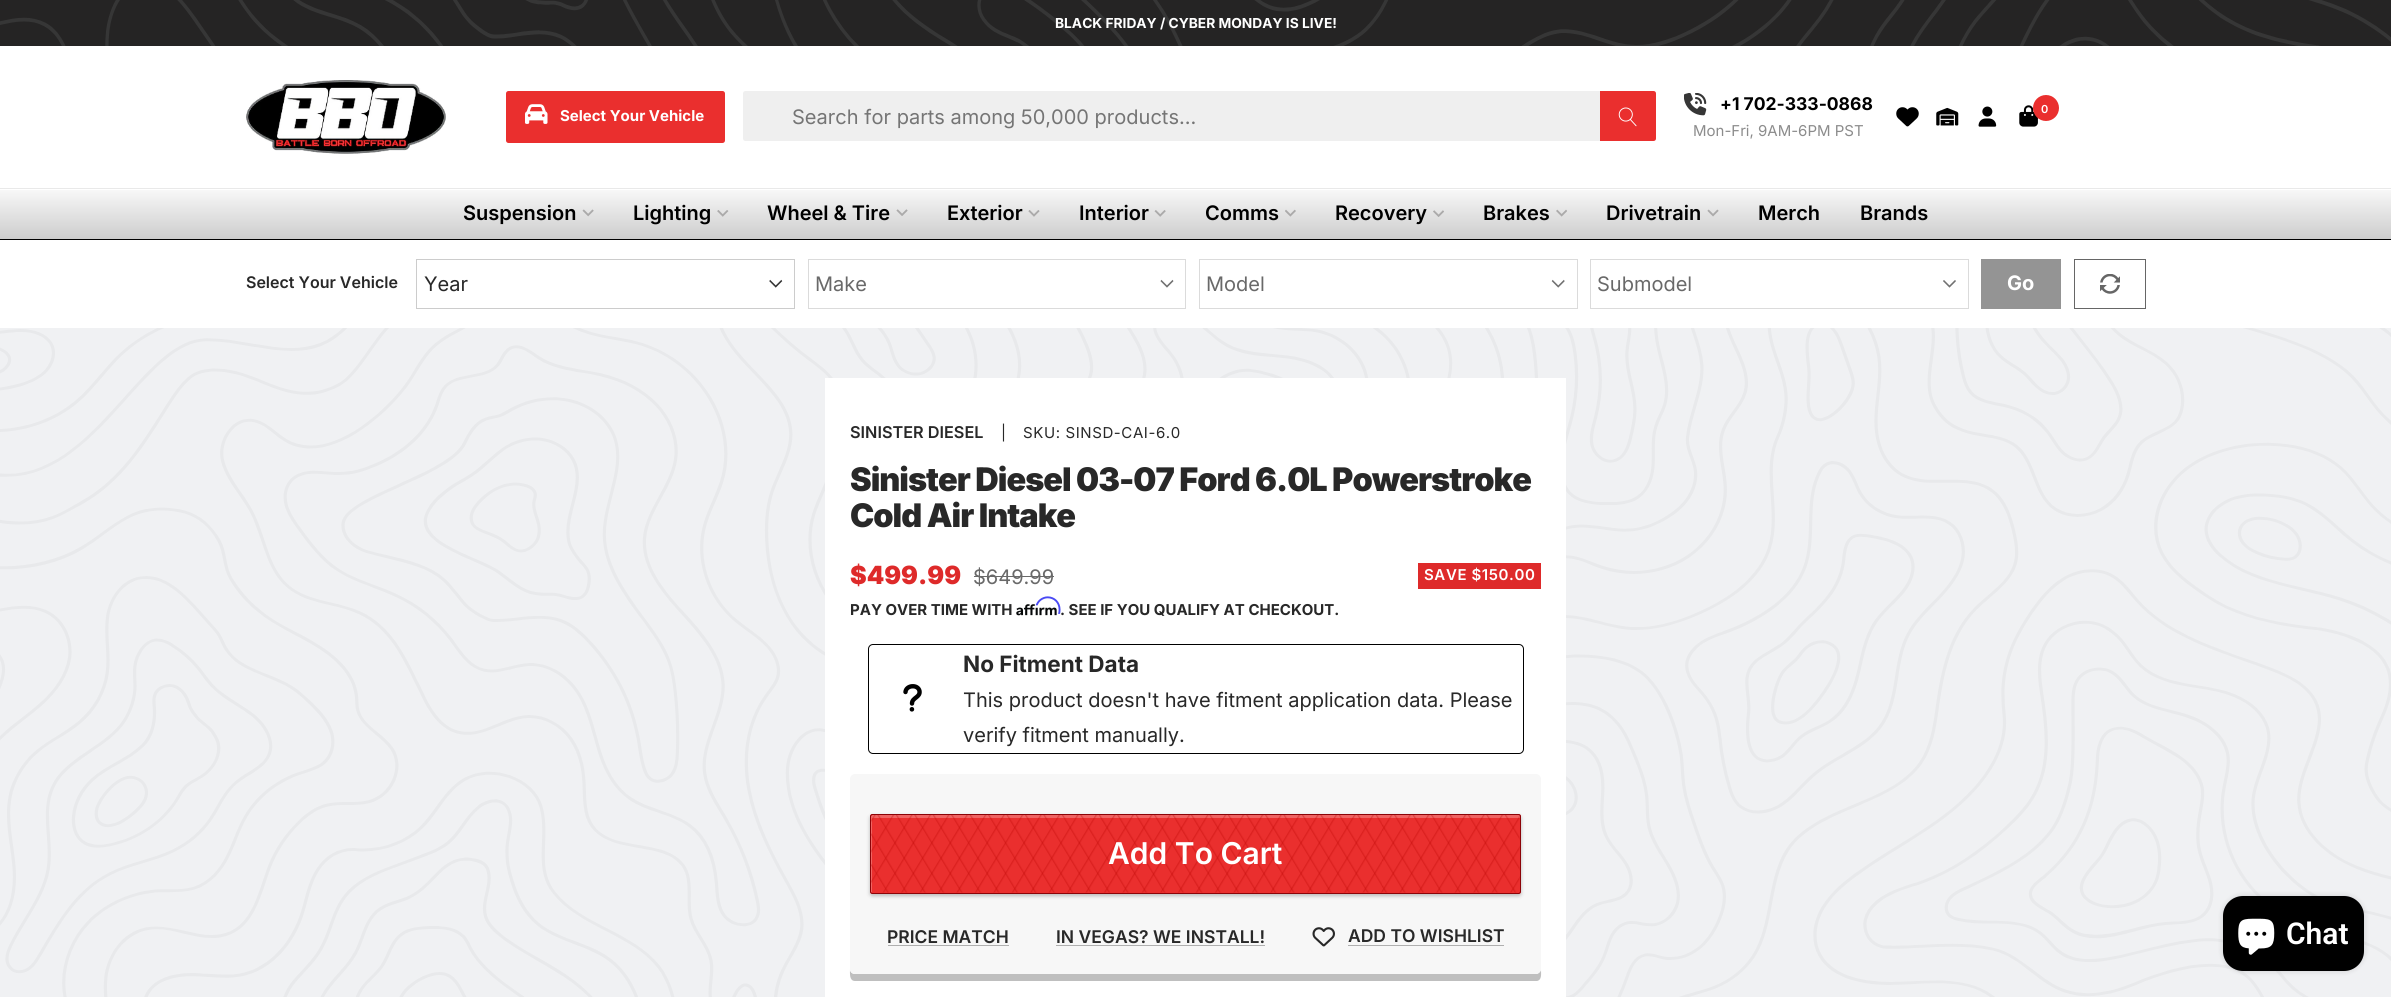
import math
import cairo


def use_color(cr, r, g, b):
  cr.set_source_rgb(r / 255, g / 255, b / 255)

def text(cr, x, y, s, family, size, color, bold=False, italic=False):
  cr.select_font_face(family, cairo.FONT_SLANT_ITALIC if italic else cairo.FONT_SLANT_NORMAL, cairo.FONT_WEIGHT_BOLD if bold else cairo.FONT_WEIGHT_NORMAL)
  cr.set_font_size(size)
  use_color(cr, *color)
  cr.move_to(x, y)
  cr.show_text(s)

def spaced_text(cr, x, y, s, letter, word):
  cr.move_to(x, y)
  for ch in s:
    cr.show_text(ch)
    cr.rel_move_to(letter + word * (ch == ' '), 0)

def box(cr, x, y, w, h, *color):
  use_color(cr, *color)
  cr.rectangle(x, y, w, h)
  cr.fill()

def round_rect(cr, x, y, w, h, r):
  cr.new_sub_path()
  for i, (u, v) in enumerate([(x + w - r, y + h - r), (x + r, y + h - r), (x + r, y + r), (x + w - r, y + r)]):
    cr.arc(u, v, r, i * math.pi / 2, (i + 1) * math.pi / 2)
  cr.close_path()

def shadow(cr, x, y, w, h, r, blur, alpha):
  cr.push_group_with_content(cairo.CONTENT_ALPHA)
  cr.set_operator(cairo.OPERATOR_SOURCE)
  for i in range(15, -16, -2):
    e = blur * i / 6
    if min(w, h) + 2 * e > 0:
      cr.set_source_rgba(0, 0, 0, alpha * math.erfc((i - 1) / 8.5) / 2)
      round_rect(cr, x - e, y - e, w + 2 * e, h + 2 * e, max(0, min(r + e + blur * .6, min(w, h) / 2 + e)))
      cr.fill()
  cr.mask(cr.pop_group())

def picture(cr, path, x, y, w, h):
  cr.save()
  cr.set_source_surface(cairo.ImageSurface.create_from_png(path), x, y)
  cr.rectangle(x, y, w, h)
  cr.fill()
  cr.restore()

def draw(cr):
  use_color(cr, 255, 255, 255)
  cr.paint()
  box(cr, 0, 0, 2391, 46, 37, 36, 36)
  picture(cr, "img_01.png", 0, 0, 2391, 46)
  picture(cr, "img_02.png", 246, 80, 200, 74)
  use_color(cr, 234, 47, 46)
  round_rect(cr, 506, 91, 219, 52, 2.5)
  cr.fill()
  picture(cr, "img_03.png", 525, 104, 23, 20)
  use_color(cr, 239, 239, 239)
  cr.new_path()
  cr.move_to(745.5, 91)
  cr.line_to(1600, 91)
  cr.line_to(1600, 141)
  cr.line_to(745.5, 141)
  cr.curve_to(744, 141, 743, 140, 743, 138.5)
  cr.line_to(743, 93.5)
  cr.curve_to(743, 92, 744, 91, 745.5, 91)
  cr.close_path()
  cr.fill()
  use_color(cr, 234, 47, 46)
  cr.new_path()
  cr.move_to(1600, 91)
  cr.line_to(1653.5, 91)
  cr.curve_to(1655, 91, 1656, 92, 1656, 93.5)
  cr.line_to(1656, 138.5)
  cr.curve_to(1656, 140, 1655, 141, 1653.5, 141)
  cr.line_to(1600, 141)
  cr.close_path()
  cr.fill()
  picture(cr, "img_04.png", 1618, 107, 19, 20)
  picture(cr, "img_05.png", 1684, 93, 23, 23)
  picture(cr, "img_06.png", 1896, 107, 23, 20)
  picture(cr, "img_07.png", 1936, 107, 23, 19)
  picture(cr, "img_08.png", 1978, 106, 19, 21)
  picture(cr, "img_09.png", 2019, 105, 19, 22)
  cr.arc(2046, 108, 13, 0, 2 * math.pi)
  cr.fill()
  gradient = cairo.LinearGradient(1196, 189, 1196, 239)
  gradient.add_color_stop_rgba(0, 0.973, 0.973, 0.973, 1)
  gradient.add_color_stop_rgba(1, 0.804, 0.804, 0.804, 1)
  cr.set_source(gradient)
  cr.rectangle(0, 190, 2391, 49)
  cr.fill()
  box(cr, 0, 188, 2391, 1, 233, 233, 233)
  box(cr, 0, 239, 2391, 1, 0, 0, 0)
  picture(cr, "img_10.png", 582, 209, 12, 8)
  picture(cr, "img_11.png", 717, 210, 12, 7)
  picture(cr, "img_12.png", 896, 209, 12, 7)
  picture(cr, "img_13.png", 1028, 210, 12, 7)
  picture(cr, "img_14.png", 1154, 210, 12, 7)
  picture(cr, "img_15.png", 1285, 209, 11, 8)
  picture(cr, "img_16.png", 1433, 210, 11, 7)
  picture(cr, "img_17.png", 1556, 209, 11, 8)
  picture(cr, "img_18.png", 1707, 209, 12, 8)
  picture(cr, "img_19.png", 769, 279, 14, 9)
  cr.rectangle(416.5, 259.5, 378, 49)
  use_color(cr, 204, 204, 204)
  cr.set_line_width(1)
  cr.stroke()
  picture(cr, "img_20.png", 1160, 279, 14, 9)
  cr.rectangle(808.5, 259.5, 377, 49)
  use_color(cr, 219, 219, 219)
  cr.stroke()
  picture(cr, "img_21.png", 1551, 279, 14, 9)
  cr.rectangle(1199.5, 259.5, 378, 49)
  cr.stroke()
  picture(cr, "img_22.png", 1943, 280, 13, 8)
  cr.rectangle(1590.5, 259.5, 378, 49)
  cr.stroke()
  box(cr, 1981, 259, 80, 50, 148, 148, 148)
  cr.rectangle(2074.5, 259.5, 71, 49)
  use_color(cr, 102, 102, 102)
  cr.stroke()
  picture(cr, "img_23.png", 2100, 274, 20, 20)
  box(cr, 0, 328, 2391, 669, 240, 241, 243)
  picture(cr, "img_24.png", 0, 328, 2391, 669)
  box(cr, 825, 378, 741, 619, 255, 255, 255)
  box(cr, 974, 576, 80, 1, 105, 105, 105)
  box(cr, 1418, 563, 123, 26, 222, 42, 42)
  picture(cr, "img_26.png", 1016, 604, 41, 12)
  picture(cr, "img_25.png", 1035, 596, 26, 18)
  round_rect(cr, 868.5, 644.5, 655, 109, 4.5)
  use_color(cr, 0, 0, 0)
  cr.stroke()
  cr.new_path()
  cr.move_to(905.5, 692)
  cr.curve_to(906, 685, 918, 684, 919.5, 691)
  cr.curve_to(920.5, 697.5, 912, 697.5, 912, 703.5)
  cr.set_line_width(4.4)
  cr.set_line_cap(cairo.LINE_CAP_ROUND)
  cr.stroke()
  cr.arc(911.9, 709.3, 2.3, 0, 2 * math.pi)
  cr.fill()
  use_color(cr, 191, 191, 191)
  cr.new_path()
  cr.move_to(850, 969)
  cr.curve_to(850, 973, 849, 981, 855, 981)
  cr.line_to(1537, 981)
  cr.curve_to(1542, 980, 1541, 974, 1541, 970)
  cr.curve_to(1540, 972, 1538, 974, 1536, 974)
  cr.line_to(855, 974)
  cr.curve_to(852, 974, 850, 972, 850, 969)
  cr.close_path()
  cr.fill()
  use_color(cr, 247, 247, 247)
  round_rect(cr, 850, 774, 691, 200, 5)
  cr.fill()
  use_color(cr, 0, 0, 0)
  shadow(cr, 870, 816, 651, 80, 2.5, 2, 0.25)
  use_color(cr, 234, 47, 46)
  round_rect(cr, 870, 814, 651, 80, 2.5)
  cr.fill()
  use_color(cr, 239, 99, 98)
  cr.new_path()
  cr.move_to(874, 818)
  cr.line_to(1520, 818)
  cr.line_to(1520, 815)
  cr.line_to(872, 815)
  cr.line_to(871, 816)
  cr.line_to(871, 892)
  cr.line_to(872, 893)
  cr.line_to(872, 819)
  cr.curve_to(872, 818, 873, 818, 874, 818)
  cr.close_path()
  cr.fill()
  round_rect(cr, 870.5, 814.5, 650, 79, 2)
  use_color(cr, 140, 3, 8)
  cr.set_line_width(1)
  cr.set_line_cap(cairo.LINE_CAP_BUTT)
  cr.stroke()
  picture(cr, "img_27.png", 871, 815, 649, 78)
  box(cr, 888, 945, 121, 1, 175, 175, 175)
  box(cr, 1056, 945, 209, 1, 175, 175, 175)
  picture(cr, "img_28.png", 1312, 927, 23, 20)
  box(cr, 1348, 945, 156, 1, 175, 175, 175)
  use_color(cr, 0, 0, 0)
  shadow(cr, 2223, 896, 141, 75, 20, 3, 0.15)
  use_color(cr, 0, 0, 0)
  round_rect(cr, 2223, 896, 141, 75, 20)
  cr.fill()
  picture(cr, "img_29.png", 2238, 918, 37, 37)
  text(cr, 1055, 28, "BLACK FRIDAY / CYBER MONDAY IS LIVE!", "Inter", 13.75, (255, 255, 255), bold=True)
  text(cr, 560, 121, "Select Your Vehicle", "Inter", 15, (255, 255, 255), bold=True)
  text(cr, 792, 124, "Search for parts among 50,000 products...", "Inter", 20, (117, 117, 117))
  text(cr, 1720, 110, "+1 702-333-0868", "Inter", 17.5, (0, 0, 0), bold=True)
  text(cr, 1693, 136, "Mon-Fri, 9AM-6PM PST", "Inter", 15, (140, 140, 140))
  text(cr, 2041, 113, "0", "Inter SemiBold", 11, (255, 255, 255))
  text(cr, 463, 220, "Suspension", "Inter SemiBold", 20, (0, 0, 0))
  text(cr, 633, 220, "Lighting", "Inter SemiBold", 20, (0, 0, 0))
  text(cr, 767, 220, "Wheel & Tire", "Inter SemiBold", 20, (0, 0, 0))
  text(cr, 947, 220, "Exterior", "Inter SemiBold", 20, (0, 0, 0))
  text(cr, 1079, 220, "Interior", "Inter SemiBold", 20, (0, 0, 0))
  text(cr, 1205, 220, "Comms", "Inter SemiBold", 20, (0, 0, 0))
  text(cr, 1335, 220, "Recovery", "Inter SemiBold", 20, (0, 0, 0))
  text(cr, 1483, 220, "Brakes", "Inter SemiBold", 20, (0, 0, 0))
  text(cr, 1606, 220, "Drivetrain", "Inter SemiBold", 20, (0, 0, 0))
  text(cr, 1758, 220, "Merch", "Inter SemiBold", 20, (0, 0, 0))
  text(cr, 1860, 220, "Brands", "Inter SemiBold", 20, (0, 0, 0))
  text(cr, 246, 288, "Select Your Vehicle", "Inter SemiBold", 16, (40, 40, 40))
  text(cr, 424, 291, "Year", "Inter", 20, (40, 40, 40))
  text(cr, 815, 291, "Make", "Inter", 20, (105, 105, 105))
  text(cr, 1206, 291, "Model", "Inter", 20, (105, 105, 105))
  text(cr, 1597, 291, "Submodel", "Inter", 20, (105, 105, 105))
  text(cr, 2007, 290, "Go", "Inter", 20, (255, 255, 255), bold=True)
  text(cr, 850, 438, "SINISTER DIESEL", "Inter SemiBold", 16.25, (40, 40, 40))
  text(cr, 1001, 438, "|", "Inter", 15, (40, 40, 40))
  spaced_text(cr, 1023, 438, "SKU: SINSD-CAI-6.0", 0.6, 0)
  cr.select_font_face("Inter Black")
  cr.set_font_size(32.5)
  spaced_text(cr, 850, 491, "Sinister Diesel 03-07 Ford 6.0L Powerstroke", -1, 0)
  spaced_text(cr, 850, 527, "Cold Air Intake", -1, 0)
  text(cr, 850, 584, "$499.99", "Inter Black", 25, (222, 42, 42))
  text(cr, 973, 584, "$649.99", "Inter", 20, (105, 105, 105))
  cr.select_font_face("Inter SemiBold")
  cr.set_font_size(15)
  use_color(cr, 255, 255, 255)
  spaced_text(cr, 1424, 580, "SAVE $150.00", 0.6, 0)
  text(cr, 850, 615, "PAY OVER TIME WITH", "Inter", 15, (40, 40, 40), bold=True)
  text(cr, 1060, 615, ". SEE IF YOU QUALIFY AT CHECKOUT.", "Inter", 15, (40, 40, 40), bold=True)
  text(cr, 963, 672, "No Fitment Data", "Inter", 22.5, (40, 40, 40), bold=True)
  text(cr, 963, 707, "This product doesn't have fitment application data. Please", "Inter", 20, (40, 40, 40))
  text(cr, 963, 742, "verify fitment manually.", "Inter", 20, (40, 40, 40))
  text(cr, 1108, 864, "Add To Cart", "Inter SemiBold", 30, (255, 255, 255))
  text(cr, 887, 943, "PRICE MATCH", "Inter SemiBold", 17.5, (40, 40, 40))
  text(cr, 1056, 943, "IN VEGAS? WE INSTALL!", "Inter SemiBold", 17.5, (40, 40, 40))
  text(cr, 1348, 942, "ADD TO WISHLIST", "Inter SemiBold", 17.5, (40, 40, 40))
  text(cr, 2286, 944, "Chat", "Roboto SemiBold", 30, (255, 255, 255))


surface = cairo.ImageSurface(cairo.FORMAT_RGB24, 2391, 997)
cr = cairo.Context(surface)
options = cairo.FontOptions()
options.set_hint_metrics(cairo.HINT_METRICS_OFF)
options.set_hint_style(cairo.HINT_STYLE_NONE)
cr.set_font_options(options)
cr.set_miter_limit(4)
draw(cr)
surface.write_to_png("out.png")
